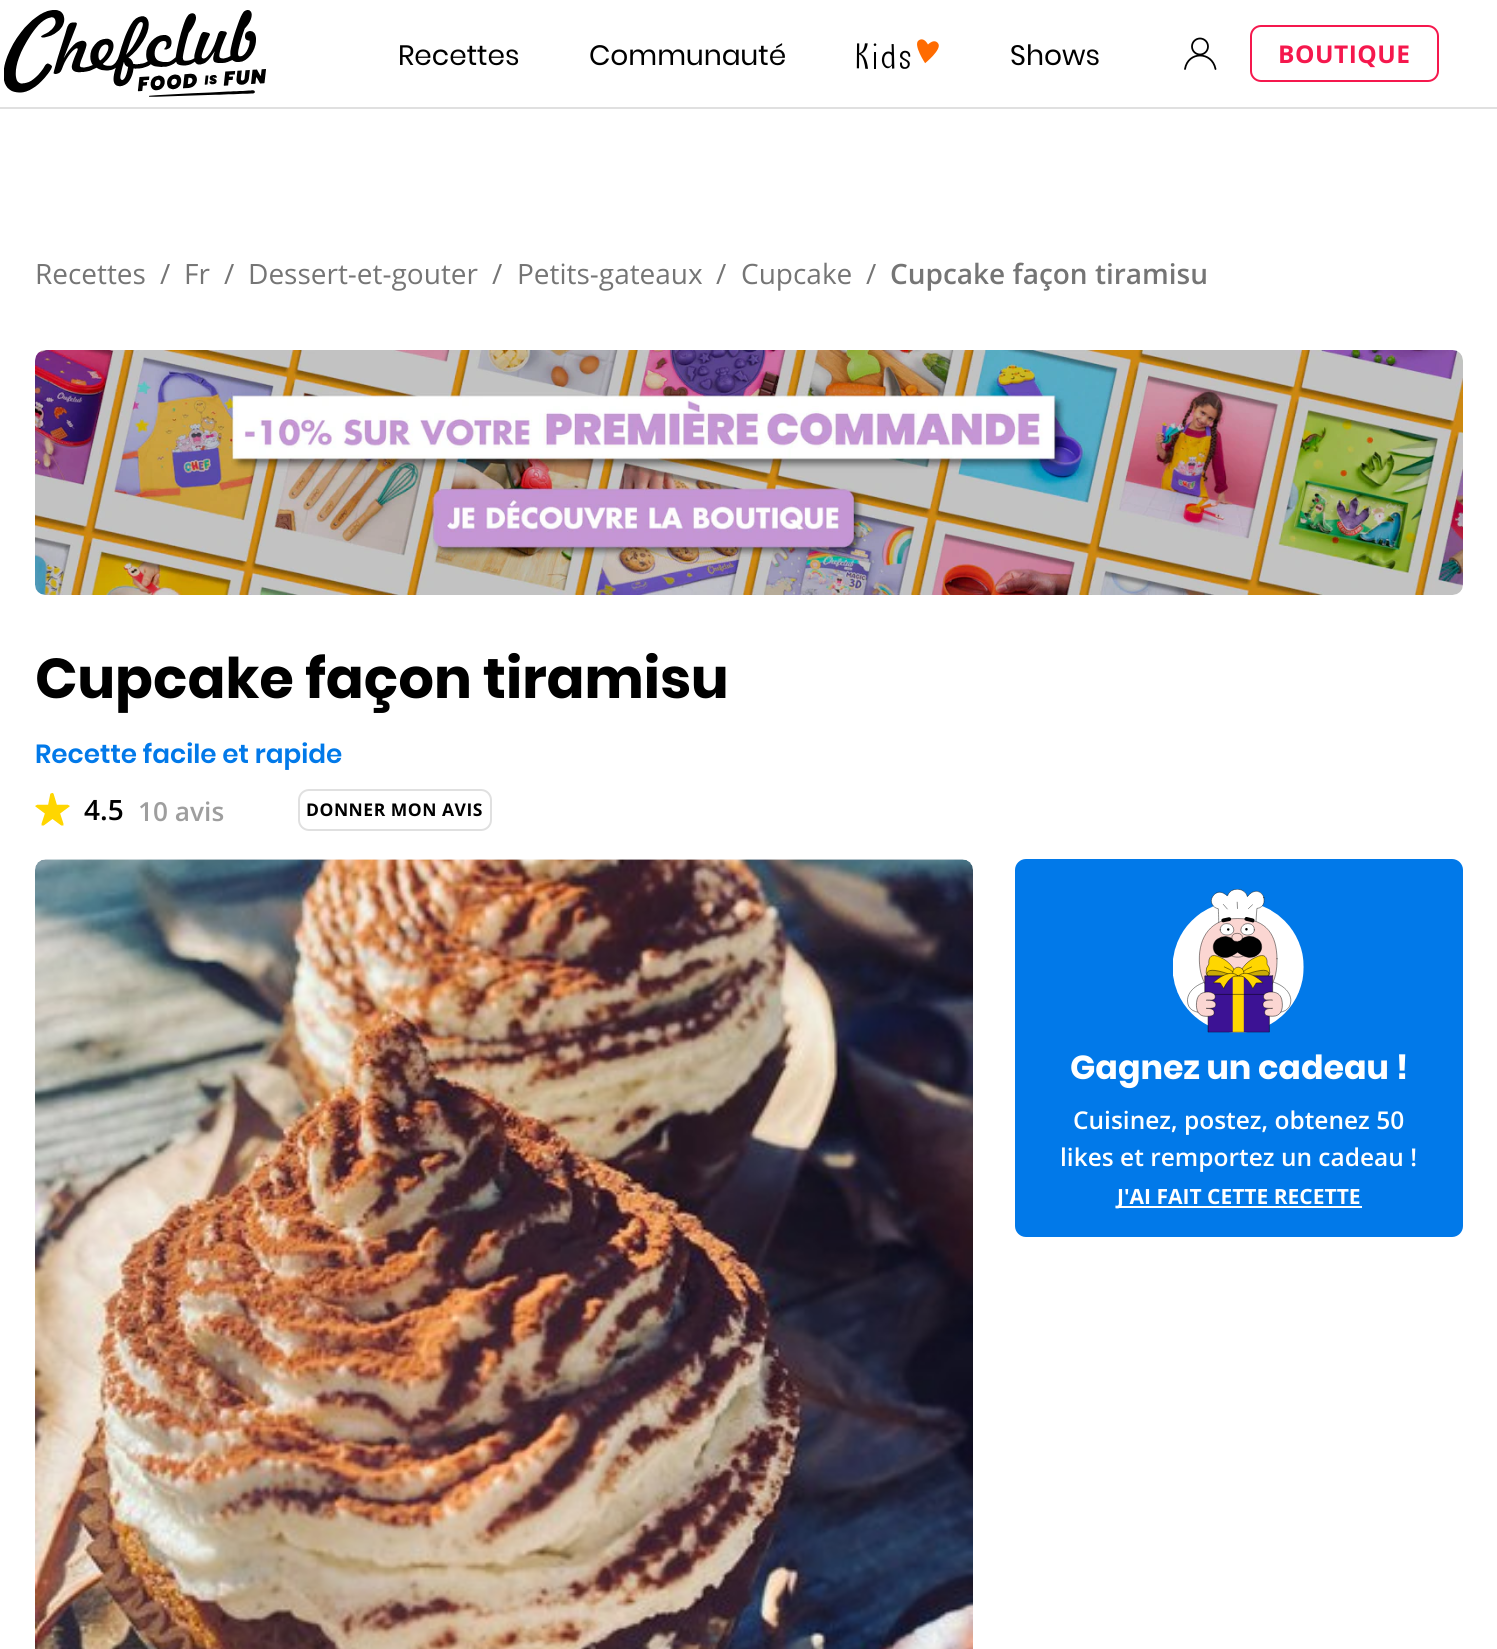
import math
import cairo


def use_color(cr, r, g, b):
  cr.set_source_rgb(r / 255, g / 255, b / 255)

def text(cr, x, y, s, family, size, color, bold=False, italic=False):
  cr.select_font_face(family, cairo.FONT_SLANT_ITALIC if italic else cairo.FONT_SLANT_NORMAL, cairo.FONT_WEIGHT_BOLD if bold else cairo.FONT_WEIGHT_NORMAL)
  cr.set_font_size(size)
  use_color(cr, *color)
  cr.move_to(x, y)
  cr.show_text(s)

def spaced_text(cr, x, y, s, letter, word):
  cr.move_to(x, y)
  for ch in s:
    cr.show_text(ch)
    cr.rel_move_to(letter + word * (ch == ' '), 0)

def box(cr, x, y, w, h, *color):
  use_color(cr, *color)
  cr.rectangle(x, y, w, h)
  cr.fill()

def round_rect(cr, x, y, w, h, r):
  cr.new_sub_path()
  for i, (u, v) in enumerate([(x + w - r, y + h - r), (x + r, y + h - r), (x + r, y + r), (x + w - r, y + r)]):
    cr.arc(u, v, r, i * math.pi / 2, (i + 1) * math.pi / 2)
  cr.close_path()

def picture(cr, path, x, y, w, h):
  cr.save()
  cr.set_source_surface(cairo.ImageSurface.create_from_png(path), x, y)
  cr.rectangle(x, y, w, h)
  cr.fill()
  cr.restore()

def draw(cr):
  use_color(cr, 255, 255, 255)
  cr.paint()
  box(cr, 0, 107, 1497, 2, 224, 224, 224)
  picture(cr, "img_01.png", 4, 10, 262, 87)
  picture(cr, "img_02.png", 856, 39, 83, 30)
  cr.arc(1200, 46.5, 8, 0, 2 * math.pi)
  use_color(cr, 0, 0, 0)
  cr.set_line_width(1.8)
  cr.stroke()
  cr.new_path()
  cr.move_to(1215.5, 69)
  cr.curve_to(1212, 51, 1188, 51, 1185, 69)
  cr.set_line_cap(cairo.LINE_CAP_ROUND)
  cr.stroke()
  round_rect(cr, 1251, 26, 187, 55, 10)
  use_color(cr, 245, 24, 77)
  cr.set_line_width(2)
  cr.set_line_cap(cairo.LINE_CAP_BUTT)
  cr.stroke()
  picture(cr, "img_03.png", 35, 350, 1428, 245)
  picture(cr, "img_04.png", 35, 792, 35, 34)
  round_rect(cr, 299, 790, 192, 40, 10)
  use_color(cr, 224, 224, 224)
  cr.stroke()
  picture(cr, "img_05.png", 35, 859, 938, 790)
  use_color(cr, 1, 121, 233)
  round_rect(cr, 1015, 859, 448, 378, 11)
  cr.fill()
  picture(cr, "img_06.png", 1173, 889, 131, 144)
  box(cr, 1117, 1206, 245, 2, 255, 255, 255)
  text(cr, 398, 65, "Recettes", "Poppins", 28, (0, 0, 0))
  text(cr, 589, 65, "Communauté", "Poppins", 28, (0, 0, 0))
  text(cr, 1010, 65, "Shows", "Poppins", 28, (0, 0, 0))
  cr.select_font_face("Open Sans", cairo.FONT_SLANT_NORMAL, cairo.FONT_WEIGHT_BOLD)
  cr.set_font_size(24.5)
  use_color(cr, 245, 24, 77)
  spaced_text(cr, 1278, 63, "BOUTIQUE", 0.5, 0)
  text(cr, 35, 284, "Recettes", "Open Sans", 28, (117, 117, 117))
  text(cr, 160, 284, "/", "Open Sans", 28, (117, 117, 117))
  text(cr, 184, 284, "Fr", "Open Sans", 28, (117, 117, 117))
  text(cr, 224, 284, "/", "Open Sans", 28, (117, 117, 117))
  text(cr, 248, 284, "Dessert-et-gouter", "Open Sans", 28, (117, 117, 117))
  text(cr, 492, 284, "/", "Open Sans", 28, (117, 117, 117))
  text(cr, 517, 284, "Petits-gateaux", "Open Sans", 28, (117, 117, 117))
  text(cr, 716, 284, "/", "Open Sans", 28, (117, 117, 117))
  text(cr, 741, 284, "Cupcake", "Open Sans", 28, (117, 117, 117))
  text(cr, 866, 284, "/", "Open Sans", 28, (117, 117, 117))
  text(cr, 890, 284, "Cupcake façon tiramisu", "Open Sans SemiBold", 28, (117, 117, 117))
  text(cr, 35, 698, "Cupcake façon tiramisu", "Poppins", 56, (0, 0, 0), bold=True)
  text(cr, 35, 763, "Recette facile et rapide", "Poppins SemiBold", 26.25, (1, 121, 233))
  text(cr, 84, 820, "4.5", "Open Sans SemiBold", 28, (0, 0, 0))
  text(cr, 138, 821, "10 avis", "Open Sans SemiBold", 26.25, (158, 158, 158))
  cr.select_font_face("Open Sans", cairo.FONT_SLANT_NORMAL, cairo.FONT_WEIGHT_BOLD)
  cr.set_font_size(17.5)
  use_color(cr, 0, 0, 0)
  spaced_text(cr, 306, 816, "DONNER MON AVIS", 0.5, 0)
  text(cr, 1070, 1079, "Gagnez un cadeau !", "Poppins", 33.25, (255, 255, 255), bold=True)
  text(cr, 1073, 1129, "Cuisinez, postez, obtenez 50", "Open Sans SemiBold", 24.5, (255, 255, 255))
  text(cr, 1060, 1166, "likes et remportez un cadeau !", "Open Sans SemiBold", 24.5, (255, 255, 255))
  text(cr, 1117, 1204, "J'AI FAIT CETTE RECETTE", "Open Sans", 21, (255, 255, 255), bold=True)


surface = cairo.ImageSurface(cairo.FORMAT_RGB24, 1497, 1649)
cr = cairo.Context(surface)
options = cairo.FontOptions()
options.set_hint_metrics(cairo.HINT_METRICS_OFF)
options.set_hint_style(cairo.HINT_STYLE_NONE)
cr.set_font_options(options)
cr.set_miter_limit(4)
draw(cr)
surface.write_to_png("out.png")
